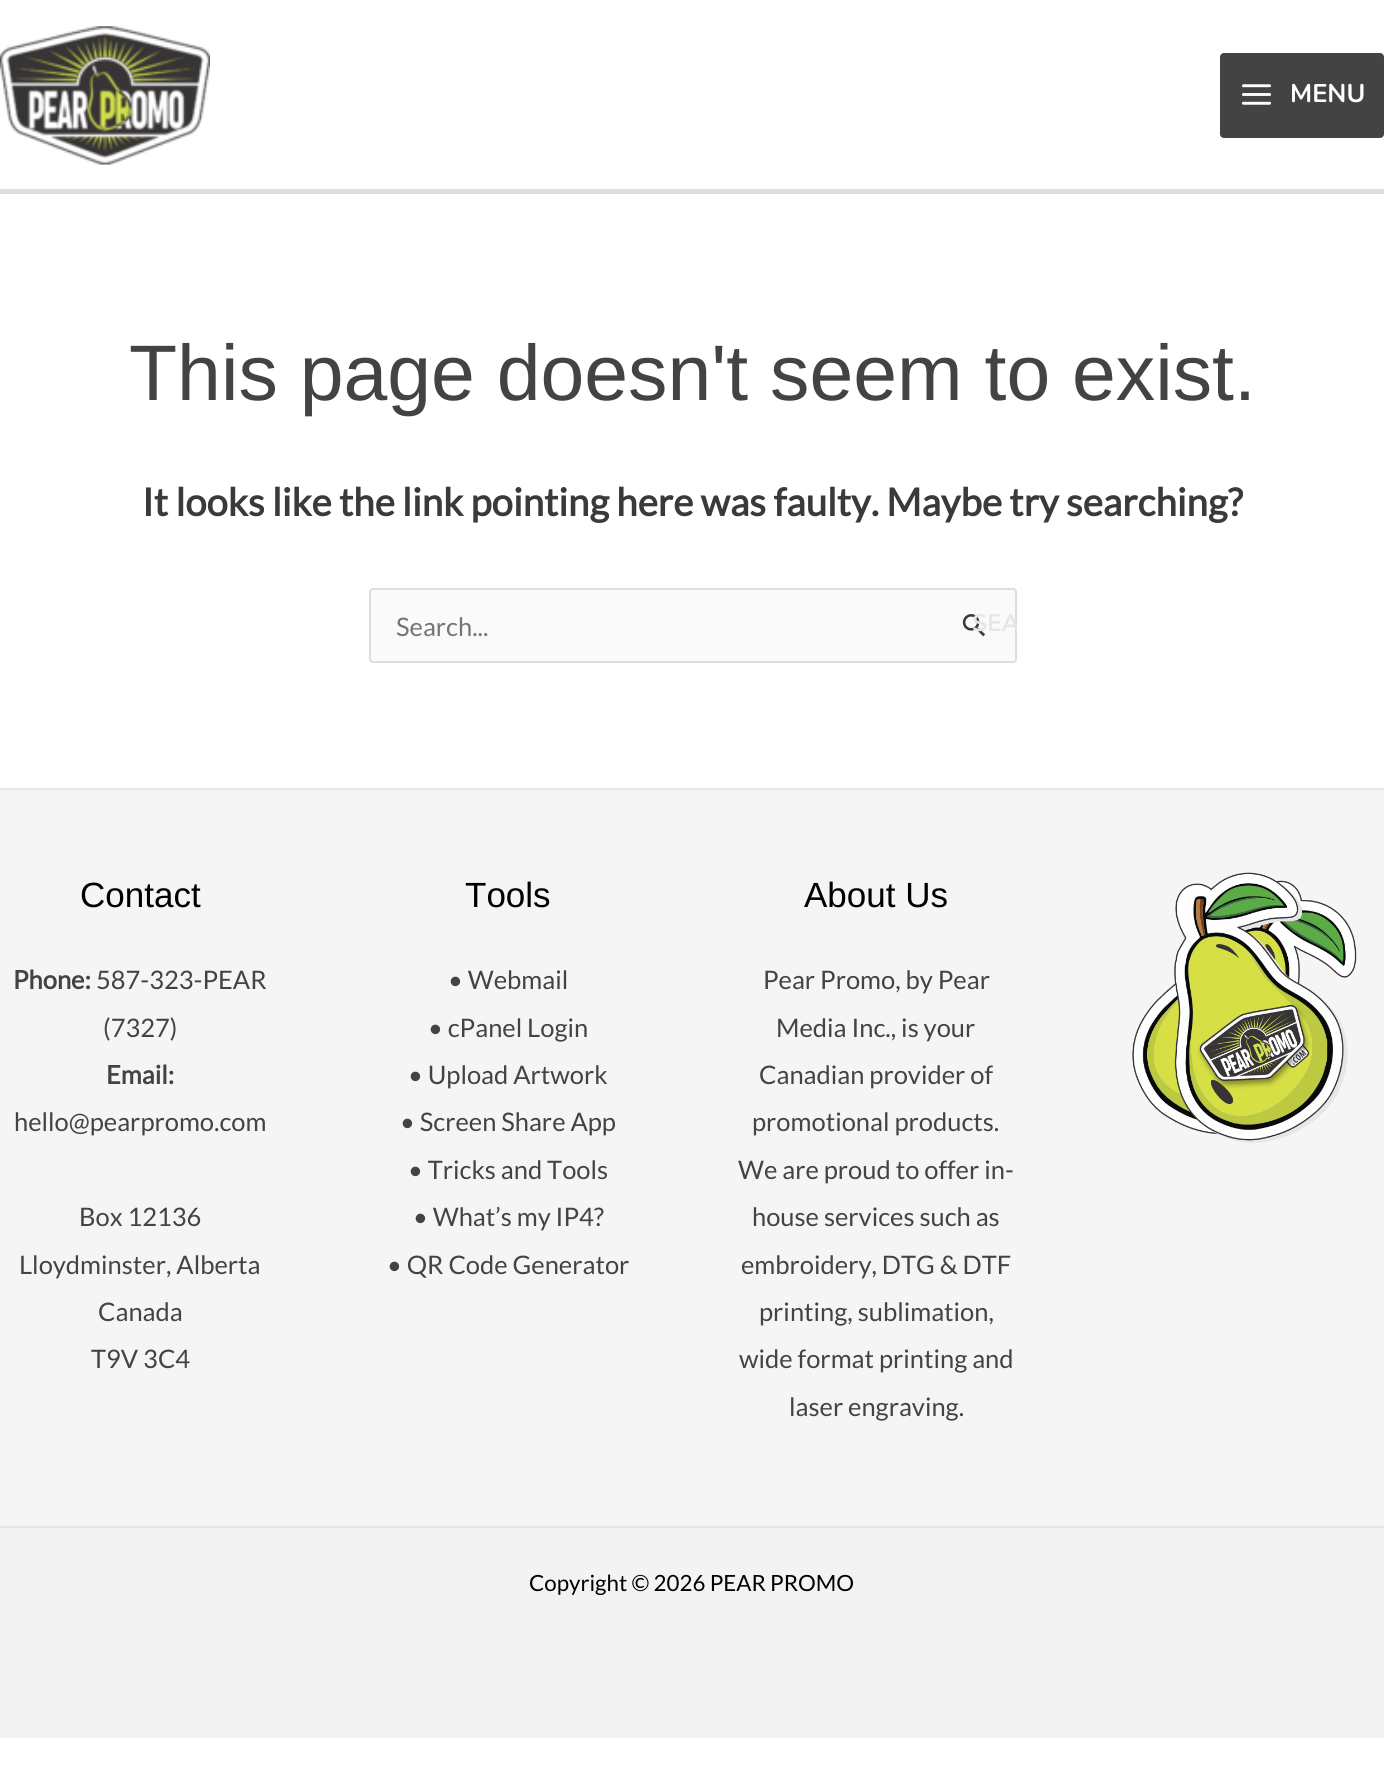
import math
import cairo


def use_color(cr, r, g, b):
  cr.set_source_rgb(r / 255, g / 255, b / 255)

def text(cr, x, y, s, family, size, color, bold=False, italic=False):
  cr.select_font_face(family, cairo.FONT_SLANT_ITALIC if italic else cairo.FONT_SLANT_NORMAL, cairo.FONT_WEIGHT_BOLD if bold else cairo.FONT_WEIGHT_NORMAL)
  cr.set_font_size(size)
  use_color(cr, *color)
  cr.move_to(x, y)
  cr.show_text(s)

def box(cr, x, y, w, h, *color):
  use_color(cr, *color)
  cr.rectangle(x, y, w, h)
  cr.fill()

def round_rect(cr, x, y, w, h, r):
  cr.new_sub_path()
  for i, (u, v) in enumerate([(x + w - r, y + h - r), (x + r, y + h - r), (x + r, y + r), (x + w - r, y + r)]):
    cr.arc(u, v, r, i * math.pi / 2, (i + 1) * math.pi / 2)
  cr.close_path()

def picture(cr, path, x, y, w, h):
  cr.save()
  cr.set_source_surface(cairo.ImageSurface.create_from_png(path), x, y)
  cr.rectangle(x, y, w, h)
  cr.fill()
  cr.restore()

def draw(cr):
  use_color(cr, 255, 255, 255)
  cr.paint()
  box(cr, 0, 189, 1384, 5, 221, 221, 221)
  picture(cr, "img_01.png", 0, 26, 210, 139)
  use_color(cr, 67, 67, 67)
  round_rect(cr, 1220, 53, 164, 85, 4)
  cr.fill()
  picture(cr, "img_02.png", 1241, 84, 31, 21)
  use_color(cr, 250, 250, 250)
  round_rect(cr, 370, 589, 646, 73, 3)
  cr.fill_preserve()
  use_color(cr, 221, 221, 221)
  cr.stroke()
  picture(cr, "img_03.png", 962, 614, 24, 23)
  box(cr, 0, 790, 1384, 736, 245, 245, 245)
  box(cr, 0, 788, 1384, 2, 230, 230, 230)
  picture(cr, "img_04.png", 1132, 872, 225, 272)
  box(cr, 0, 1528, 1384, 210, 243, 243, 244)
  box(cr, 0, 1526, 1384, 2, 228, 228, 229)
  text(cr, 1290, 102, "MENU", "Nunito ExtraLight", 25.5, (255, 255, 255))
  text(cr, 129, 400, "This page doesn't seem to exist.", "Liberation Sans", 78.75, (67, 67, 67))
  text(cr, 142, 516, "It looks like the link pointing here was faulty. Maybe try searching?", "Lato", 38.3, (58, 58, 58), bold=True)
  cr.save()
  round_rect(cr, 938, 588, 79, 70, 4)
  cr.clip()
  text(cr, 972, 631, "SEA", "Nunito ExtraLight", 24, (230, 230, 230))
  cr.restore()
  text(cr, 396, 636, "Search...", "Lato", 25.5, (117, 117, 117))
  text(cr, 80, 907, "Contact", "Liberation Sans", 35, (0, 0, 0))
  text(cr, 13, 989, "Phone:", "Lato", 25.5, (67, 67, 67), bold=True)
  text(cr, 96, 989, "587-323-PEAR", "Lato", 25.5, (67, 67, 67))
  text(cr, 103, 1037, "(7327)", "Lato", 25.5, (67, 67, 67))
  text(cr, 106, 1084, "Email:", "Lato", 25.5, (67, 67, 67), bold=True)
  text(cr, 14, 1131, "hello@pearpromo.com", "Lato", 25.5, (67, 67, 67))
  text(cr, 79, 1226, "Box 12136", "Lato", 25.5, (67, 67, 67))
  text(cr, 19, 1274, "Lloydminster, Alberta", "Lato", 25.5, (67, 67, 67))
  text(cr, 98, 1321, "Canada", "Lato", 25.5, (67, 67, 67))
  text(cr, 91, 1368, "T9V 3C4", "Lato", 25.5, (67, 67, 67))
  text(cr, 465, 907, "Tools", "Liberation Sans", 35, (0, 0, 0))
  text(cr, 448, 989, "• Webmail", "Lato", 25.5, (67, 67, 67))
  text(cr, 428, 1037, "• cPanel Login", "Lato", 25.5, (67, 67, 67))
  text(cr, 408, 1084, "• Upload Artwork", "Lato", 25.5, (67, 67, 67))
  text(cr, 400, 1131, "• Screen Share App", "Lato", 25.5, (67, 67, 67))
  text(cr, 408, 1179, "• Tricks and Tools", "Lato", 25.5, (67, 67, 67))
  text(cr, 413, 1226, "• What’s my IP4?", "Lato", 25.5, (67, 67, 67))
  text(cr, 387, 1274, "• QR Code Generator", "Lato", 25.5, (67, 67, 67))
  text(cr, 804, 907, "About Us", "Liberation Sans", 35, (0, 0, 0))
  text(cr, 763, 989, "Pear Promo, by Pear", "Lato", 25.5, (67, 67, 67))
  text(cr, 776, 1037, "Media Inc., is your", "Lato", 25.5, (67, 67, 67))
  text(cr, 759, 1084, "Canadian provider of", "Lato", 25.5, (67, 67, 67))
  text(cr, 752, 1131, "promotional products.", "Lato", 25.5, (67, 67, 67))
  text(cr, 738, 1179, "We are proud to offer in-", "Lato", 25.5, (67, 67, 67))
  text(cr, 752, 1226, "house services such as", "Lato", 25.5, (67, 67, 67))
  text(cr, 741, 1274, "embroidery, DTG & DTF", "Lato", 25.5, (67, 67, 67))
  text(cr, 759, 1321, "printing, sublimation,", "Lato", 25.5, (67, 67, 67))
  text(cr, 739, 1368, "wide format printing and", "Lato", 25.5, (67, 67, 67))
  text(cr, 789, 1416, "laser engraving.", "Lato", 25.5, (67, 67, 67))
  text(cr, 529, 1591, "Copyright © 2026 PEAR PROMO", "Lato", 22.3, (0, 0, 0))


surface = cairo.ImageSurface(cairo.FORMAT_RGB24, 1384, 1770)
cr = cairo.Context(surface)
options = cairo.FontOptions()
options.set_hint_metrics(cairo.HINT_METRICS_OFF)
options.set_hint_style(cairo.HINT_STYLE_NONE)
cr.set_font_options(options)
cr.set_miter_limit(4)
draw(cr)
surface.write_to_png("out.png")
